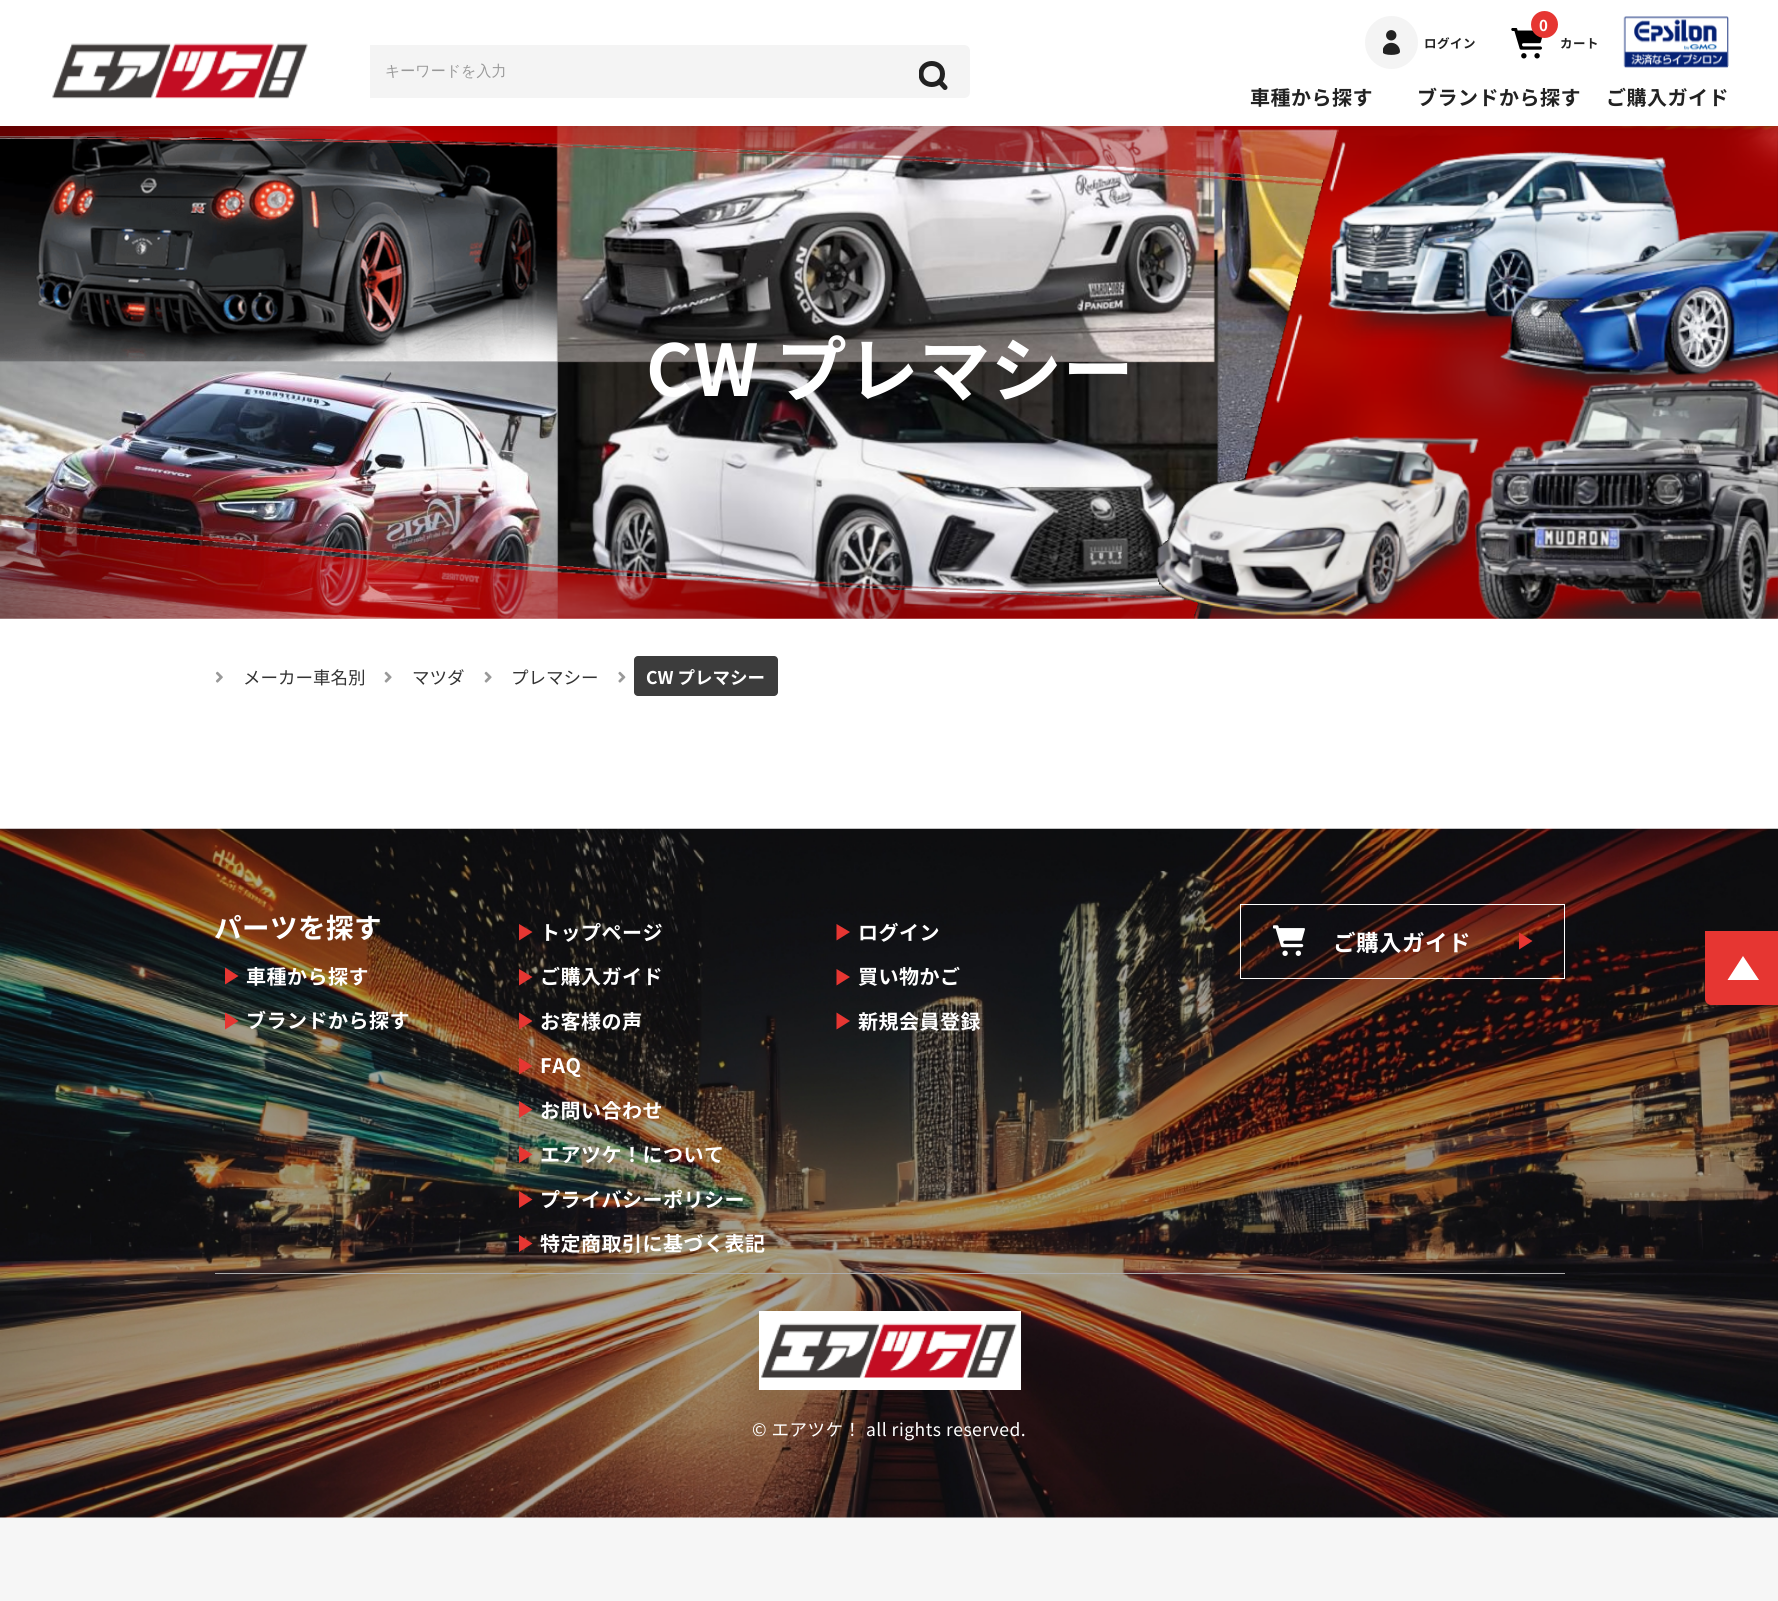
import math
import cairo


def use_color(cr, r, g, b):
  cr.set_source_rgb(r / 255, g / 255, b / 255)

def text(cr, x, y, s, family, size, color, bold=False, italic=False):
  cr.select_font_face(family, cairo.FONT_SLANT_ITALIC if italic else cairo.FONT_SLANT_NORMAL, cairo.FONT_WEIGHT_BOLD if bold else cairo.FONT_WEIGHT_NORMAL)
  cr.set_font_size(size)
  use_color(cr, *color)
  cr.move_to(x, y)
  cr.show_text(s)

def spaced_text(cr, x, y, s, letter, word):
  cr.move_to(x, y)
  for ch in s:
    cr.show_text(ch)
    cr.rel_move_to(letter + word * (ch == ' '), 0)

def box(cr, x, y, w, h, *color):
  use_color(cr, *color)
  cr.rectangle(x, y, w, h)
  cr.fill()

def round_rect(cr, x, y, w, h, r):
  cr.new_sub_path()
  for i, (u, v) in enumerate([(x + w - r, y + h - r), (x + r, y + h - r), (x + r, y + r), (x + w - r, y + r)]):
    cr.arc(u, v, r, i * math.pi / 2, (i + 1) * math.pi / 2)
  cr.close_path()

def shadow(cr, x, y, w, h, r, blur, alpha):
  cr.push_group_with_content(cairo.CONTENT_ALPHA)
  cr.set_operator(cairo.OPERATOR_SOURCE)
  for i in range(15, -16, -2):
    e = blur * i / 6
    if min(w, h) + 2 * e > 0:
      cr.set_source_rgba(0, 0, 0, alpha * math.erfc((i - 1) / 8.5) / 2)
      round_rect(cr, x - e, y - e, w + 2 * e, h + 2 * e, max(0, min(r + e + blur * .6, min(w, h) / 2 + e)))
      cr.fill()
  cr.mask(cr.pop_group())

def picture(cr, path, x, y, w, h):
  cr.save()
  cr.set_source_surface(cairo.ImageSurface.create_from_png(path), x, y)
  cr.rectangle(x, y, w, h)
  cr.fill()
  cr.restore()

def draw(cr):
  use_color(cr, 246, 246, 246)
  cr.paint()
  box(cr, 0, 126, 1778, 1392, 255, 255, 255)
  picture(cr, "img_05.png", 0, 126, 1778, 493)
  use_color(cr, 0, 0, 0)
  shadow(cr, 4, 0, 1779, 126, 0, 6, 0.1)
  box(cr, 0, 0, 1778, 126, 255, 255, 255)
  picture(cr, "img_01.png", 52, 43, 256, 56)
  use_color(cr, 244, 244, 244)
  cr.new_path()
  cr.move_to(370, 45)
  cr.line_to(964, 45)
  cr.curve_to(967.5, 45, 970, 47.5, 970, 51)
  cr.line_to(970, 92)
  cr.curve_to(970, 95.5, 967.5, 98, 964, 98)
  cr.line_to(370, 98)
  cr.close_path()
  cr.fill()
  cr.save()
  cr.rectangle(919, 61, 30, 29)
  cr.clip()
  cr.new_path()
  cr.move_to(942.5, 74)
  cr.curve_to(942.5, 88, 921, 88, 921, 74)
  cr.curve_to(921, 60, 942.5, 60, 942.5, 74)
  cr.close_path()
  use_color(cr, 34, 34, 34)
  cr.set_line_width(5)
  cr.set_line_cap(cairo.LINE_CAP_ROUND)
  cr.set_line_join(cairo.LINE_JOIN_ROUND)
  cr.stroke()
  cr.restore()
  cr.new_path()
  cr.move_to(945, 87.5)
  cr.line_to(939.5, 81.5)
  use_color(cr, 34, 34, 34)
  cr.set_line_width(5)
  cr.set_line_cap(cairo.LINE_CAP_ROUND)
  cr.set_line_join(cairo.LINE_JOIN_ROUND)
  cr.stroke()
  use_color(cr, 244, 244, 244)
  cr.arc(1391.5, 42.5, 26.5, 0, 2 * math.pi)
  cr.fill()
  picture(cr, "img_02.png", 1383, 30, 17, 25)
  picture(cr, "img_03.png", 1511, 28, 32, 31)
  use_color(cr, 230, 54, 50)
  cr.arc(1544.5, 24.5, 13.5, 0, 2 * math.pi)
  cr.fill()
  picture(cr, "img_04.png", 1623, 16, 106, 52)
  picture(cr, "img_06.png", 215, 671, 8, 12)
  picture(cr, "img_07.png", 384, 671, 8, 12)
  picture(cr, "img_07.png", 484, 671, 8, 12)
  picture(cr, "img_08.png", 618, 671, 8, 12)
  use_color(cr, 60, 60, 60)
  round_rect(cr, 634, 656, 144, 40, 4)
  cr.fill()
  picture(cr, "img_09.png", 0, 828, 1778, 690)
  box(cr, 215, 1273, 1350, 1, 172, 172, 172)
  use_color(cr, 230, 54, 50)
  cr.new_path()
  cr.move_to(238.5, 976)
  cr.line_to(225, 984.5)
  cr.line_to(225, 967.5)
  cr.close_path()
  cr.fill()
  cr.new_path()
  cr.move_to(238.5, 1021)
  cr.line_to(225, 1029.5)
  cr.line_to(225, 1012.5)
  cr.close_path()
  cr.fill()
  cr.new_path()
  cr.move_to(532.5, 932)
  cr.line_to(519, 940.5)
  cr.line_to(519, 924)
  cr.close_path()
  cr.fill()
  cr.new_path()
  cr.move_to(532.5, 977)
  cr.line_to(519, 985.5)
  cr.line_to(519, 969)
  cr.close_path()
  cr.fill()
  cr.new_path()
  cr.move_to(532.5, 1021)
  cr.line_to(519, 1029.5)
  cr.line_to(519, 1012.5)
  cr.close_path()
  cr.fill()
  cr.new_path()
  cr.move_to(532.5, 1066)
  cr.line_to(519, 1074.5)
  cr.line_to(519, 1057.5)
  cr.close_path()
  cr.fill()
  cr.new_path()
  cr.move_to(532.5, 1109.5)
  cr.line_to(519, 1118)
  cr.line_to(519, 1101)
  cr.close_path()
  cr.fill()
  cr.new_path()
  cr.move_to(532.5, 1154.5)
  cr.line_to(519, 1163)
  cr.line_to(519, 1146)
  cr.close_path()
  cr.fill()
  cr.new_path()
  cr.move_to(532.5, 1199.5)
  cr.line_to(519, 1208)
  cr.line_to(519, 1191)
  cr.close_path()
  cr.fill()
  cr.new_path()
  cr.move_to(532.5, 1243.5)
  cr.line_to(519, 1252)
  cr.line_to(519, 1235)
  cr.close_path()
  cr.fill()
  cr.new_path()
  cr.move_to(850, 932)
  cr.line_to(836.5, 940.5)
  cr.line_to(836.5, 924)
  cr.close_path()
  cr.fill()
  cr.new_path()
  cr.move_to(850, 977)
  cr.line_to(836.5, 985.5)
  cr.line_to(836.5, 969)
  cr.close_path()
  cr.fill()
  cr.new_path()
  cr.move_to(850, 1021)
  cr.line_to(836.5, 1029.5)
  cr.line_to(836.5, 1012.5)
  cr.close_path()
  cr.fill()
  cr.rectangle(1240.5, 904.5, 324, 74)
  use_color(cr, 255, 255, 255)
  cr.set_line_width(1)
  cr.set_line_cap(cairo.LINE_CAP_BUTT)
  cr.set_line_join(cairo.LINE_JOIN_MITER)
  cr.stroke()
  use_color(cr, 230, 54, 50)
  cr.new_path()
  cr.move_to(1532.5, 941)
  cr.line_to(1519, 949.5)
  cr.line_to(1519, 932.5)
  cr.close_path()
  cr.fill()
  picture(cr, "img_10.png", 1273, 925, 32, 31)
  box(cr, 759, 1311, 262, 79, 255, 255, 255)
  picture(cr, "img_11.png", 761, 1323, 256, 55)
  use_color(cr, 230, 54, 50)
  cr.new_path()
  cr.move_to(1705, 931)
  cr.line_to(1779, 931)
  cr.line_to(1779, 1005)
  cr.line_to(1711, 1005)
  cr.curve_to(1708, 1005, 1705, 1002, 1705, 999)
  cr.close_path()
  cr.fill()
  use_color(cr, 255, 255, 255)
  cr.new_path()
  cr.move_to(1743, 956)
  cr.line_to(1759, 980)
  cr.line_to(1727.5, 980)
  cr.close_path()
  cr.fill()
  text(cr, 385, 76, "キーワードを入力", "WenQuanYi Zen Hei Medium", 15, (153, 153, 153))
  cr.select_font_face("Noto Sans JP", cairo.FONT_SLANT_NORMAL, cairo.FONT_WEIGHT_BOLD)
  cr.set_font_size(12.5)
  use_color(cr, 34, 34, 34)
  spaced_text(cr, 1424, 48, "ログイン", 0.5, 0)
  cr.set_font_size(15)
  use_color(cr, 255, 255, 255)
  spaced_text(cr, 1539, 31, "0", 0.5, 0)
  cr.set_font_size(12.5)
  use_color(cr, 34, 34, 34)
  spaced_text(cr, 1560, 48, "カート", 0.5, 0)
  cr.set_font_size(20)
  spaced_text(cr, 1250, 105, "車種から探す", 0.5, 0)
  spaced_text(cr, 1417, 105, "ブランドから探す", 0.5, 0)
  spaced_text(cr, 1606, 105, "ご購入ガイド", 0.5, 0)
  cr.set_font_size(71.25)
  use_color(cr, 255, 255, 255)
  spaced_text(cr, 646, 396, "CW プレマシー", 0.5, 0)
  text(cr, 243, 684, "メーカー車名別", "Noto Sans JP", 17.5, (51, 51, 51))
  text(cr, 412, 684, "マツダ", "Noto Sans JP", 17.5, (51, 51, 51))
  text(cr, 511, 684, "プレマシー", "Noto Sans JP", 17.5, (51, 51, 51))
  text(cr, 646, 684, "CW プレマシー", "Noto Sans JP", 17.5, (255, 255, 255), bold=True)
  cr.set_font_size(27.5)
  spaced_text(cr, 214, 938, "パーツを探す", 0.5, 0)
  cr.set_font_size(20)
  spaced_text(cr, 246, 984, "車種から探す", 0.5, 0)
  spaced_text(cr, 246, 1028, "ブランドから探す", 0.5, 0)
  spaced_text(cr, 540, 940, "トップページ", 0.5, 0)
  spaced_text(cr, 540, 984, "ご購入ガイド", 0.5, 0)
  spaced_text(cr, 540, 1029, "お客様の声", 0.5, 0)
  spaced_text(cr, 540, 1073, "FAQ", 0.5, 0)
  spaced_text(cr, 540, 1118, "お問い合わせ", 0.5, 0)
  spaced_text(cr, 540, 1162, "エアツケ！について", 0.5, 0)
  spaced_text(cr, 540, 1207, "プライバシーポリシー", 0.5, 0)
  spaced_text(cr, 540, 1251, "特定商取引に基づく表記", 0.5, 0)
  spaced_text(cr, 858, 940, "ログイン", 0.5, 0)
  spaced_text(cr, 858, 984, "買い物かご", 0.5, 0)
  spaced_text(cr, 858, 1029, "新規会員登録", 0.5, 0)
  cr.set_font_size(22.5)
  spaced_text(cr, 1333, 951, "ご購入ガイド", 0.5, 0)
  cr.select_font_face("Noto Sans JP")
  cr.set_font_size(17.5)
  spaced_text(cr, 752, 1436, "© エアツケ！ all rights reserved.", 0.5, 0)


surface = cairo.ImageSurface(cairo.FORMAT_RGB24, 1778, 1601)
cr = cairo.Context(surface)
options = cairo.FontOptions()
options.set_hint_metrics(cairo.HINT_METRICS_OFF)
options.set_hint_style(cairo.HINT_STYLE_NONE)
cr.set_font_options(options)
cr.set_miter_limit(4)
draw(cr)
surface.write_to_png("out.png")
